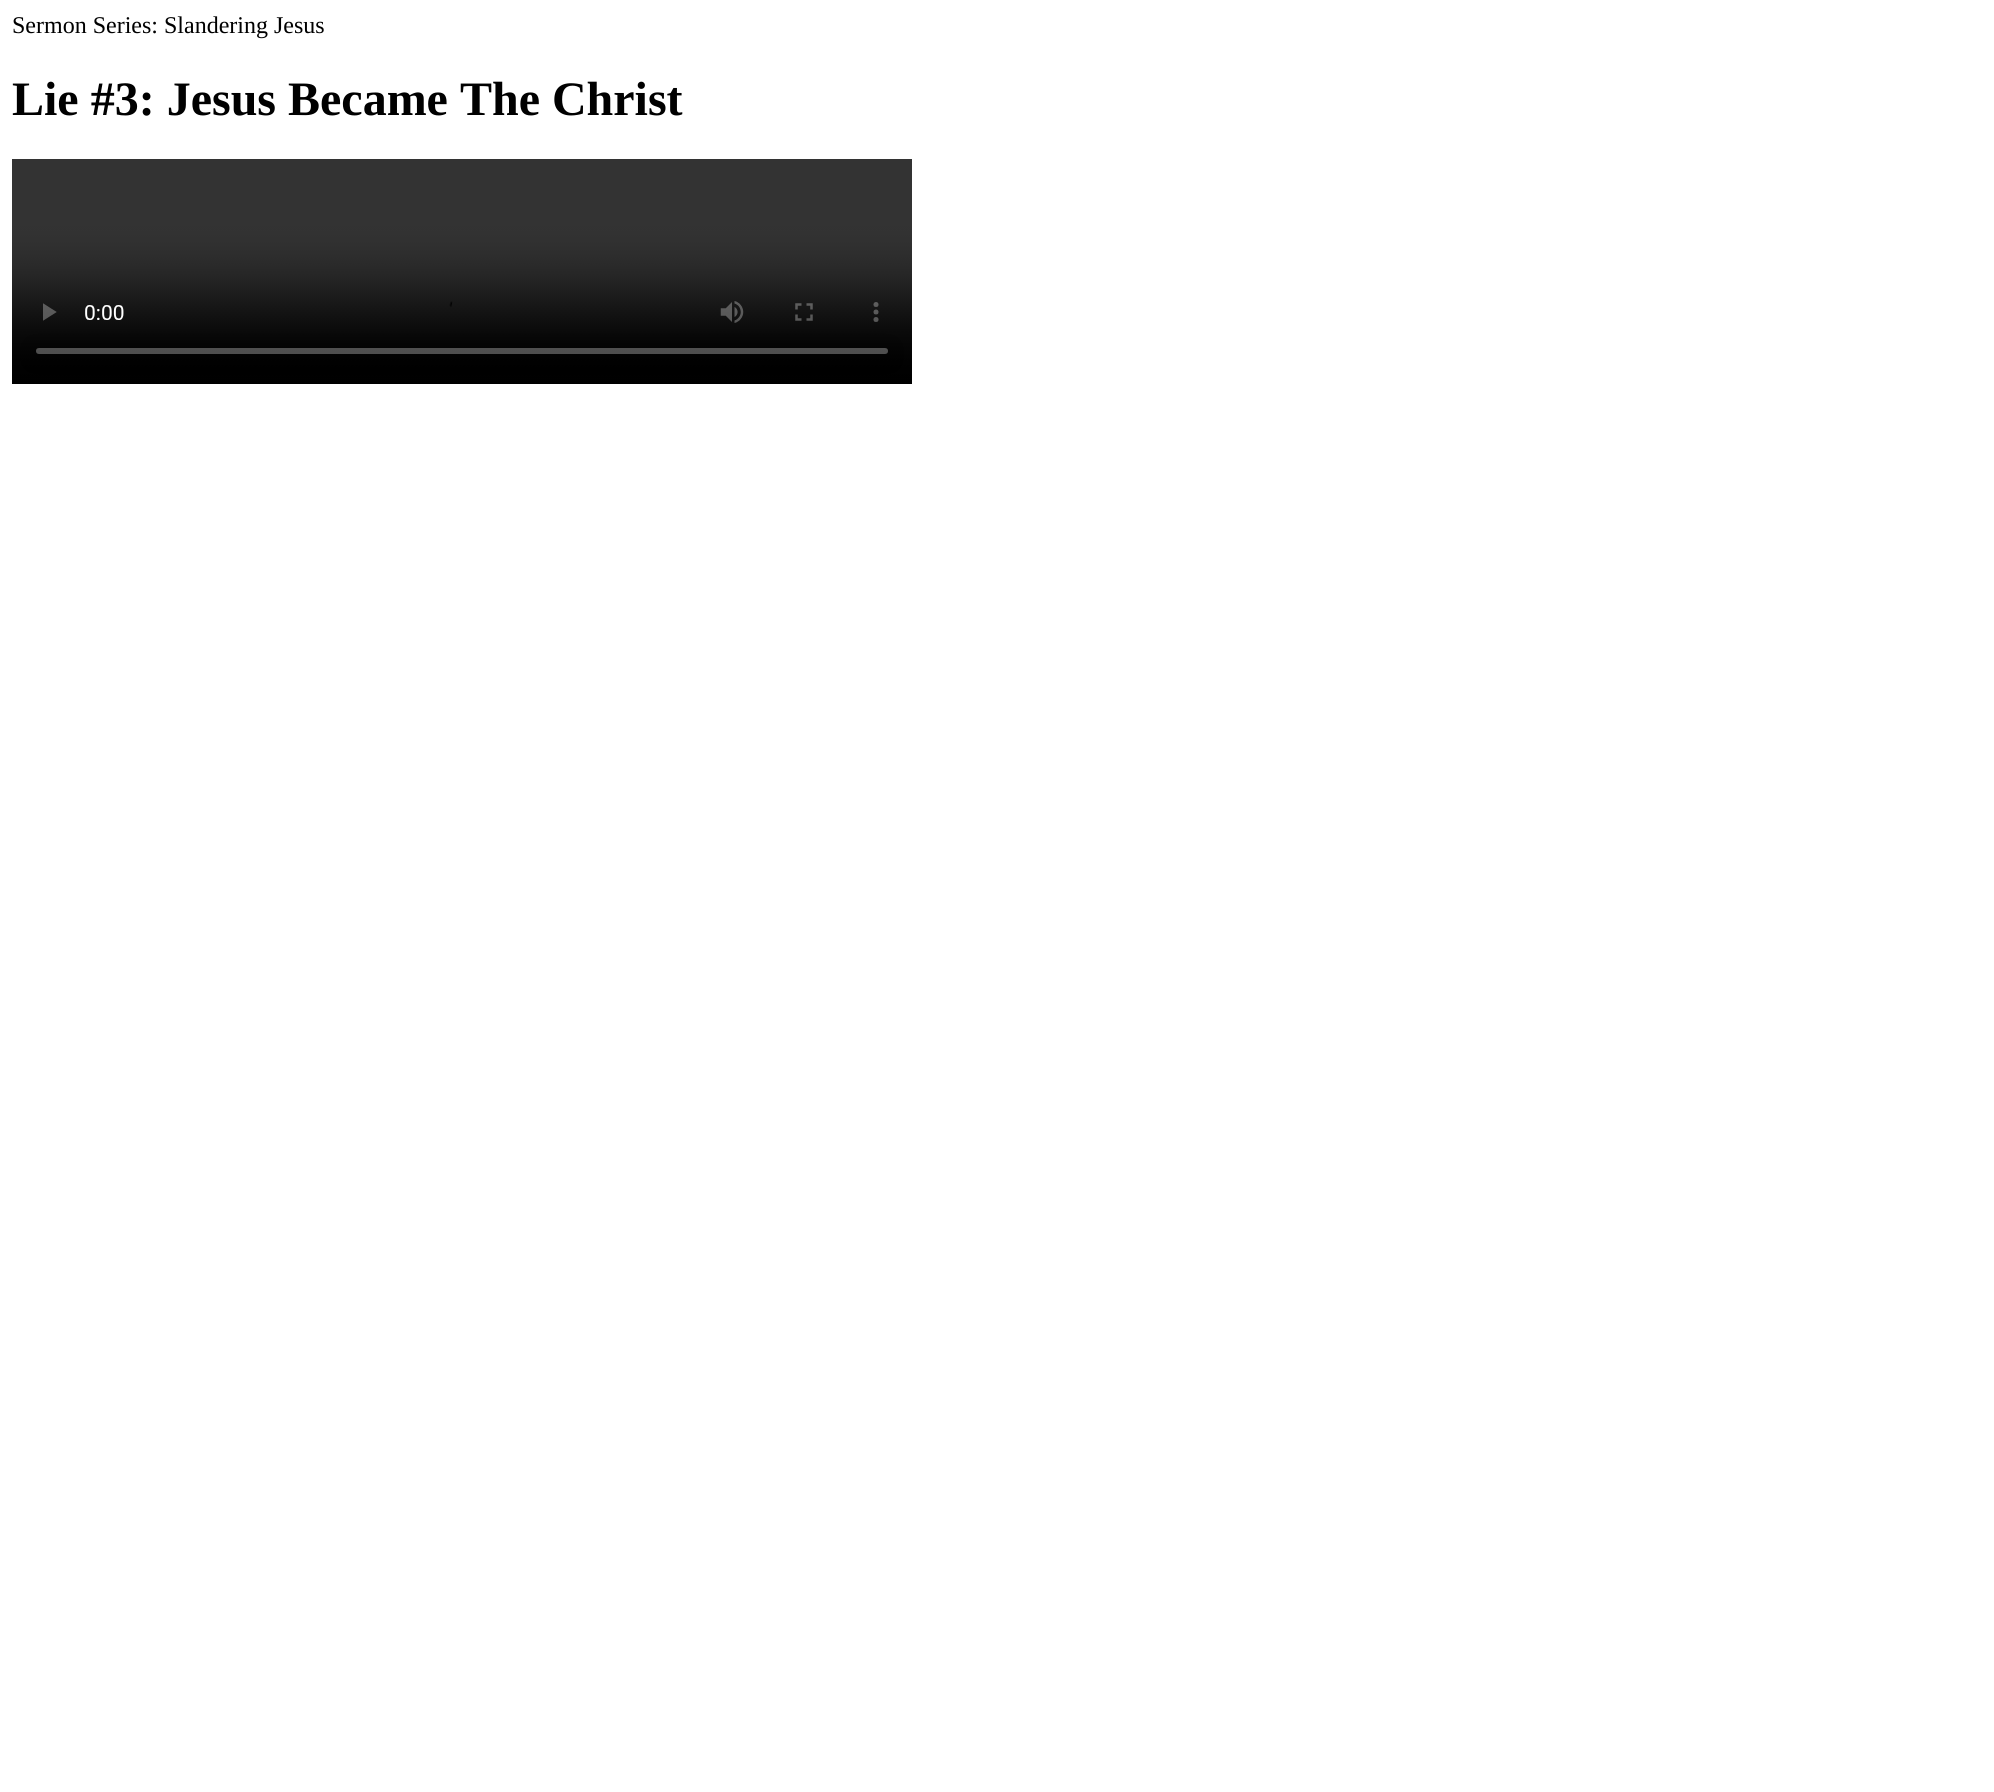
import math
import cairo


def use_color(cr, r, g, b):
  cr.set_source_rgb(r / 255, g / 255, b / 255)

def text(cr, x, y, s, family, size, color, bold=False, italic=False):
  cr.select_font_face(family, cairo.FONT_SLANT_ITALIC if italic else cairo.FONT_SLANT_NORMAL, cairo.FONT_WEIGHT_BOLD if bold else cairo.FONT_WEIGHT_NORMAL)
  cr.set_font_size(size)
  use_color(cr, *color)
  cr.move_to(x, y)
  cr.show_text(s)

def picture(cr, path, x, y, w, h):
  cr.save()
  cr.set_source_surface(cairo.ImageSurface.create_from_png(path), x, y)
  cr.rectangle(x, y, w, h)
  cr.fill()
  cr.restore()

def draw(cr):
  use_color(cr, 255, 255, 255)
  cr.paint()
  picture(cr, "img_01.png", 12, 159, 900, 225)
  text(cr, 12, 33, "Sermon Series: Slandering Jesus", "Liberation Serif", 24, (0, 0, 0))
  text(cr, 12, 115, "Lie #3: Jesus Became The Christ", "Liberation Serif", 48, (0, 0, 0), bold=True)


surface = cairo.ImageSurface(cairo.FORMAT_RGB24, 1994, 1792)
cr = cairo.Context(surface)
options = cairo.FontOptions()
options.set_hint_metrics(cairo.HINT_METRICS_OFF)
options.set_hint_style(cairo.HINT_STYLE_NONE)
cr.set_font_options(options)
cr.set_miter_limit(4)
draw(cr)
surface.write_to_png("out.png")
